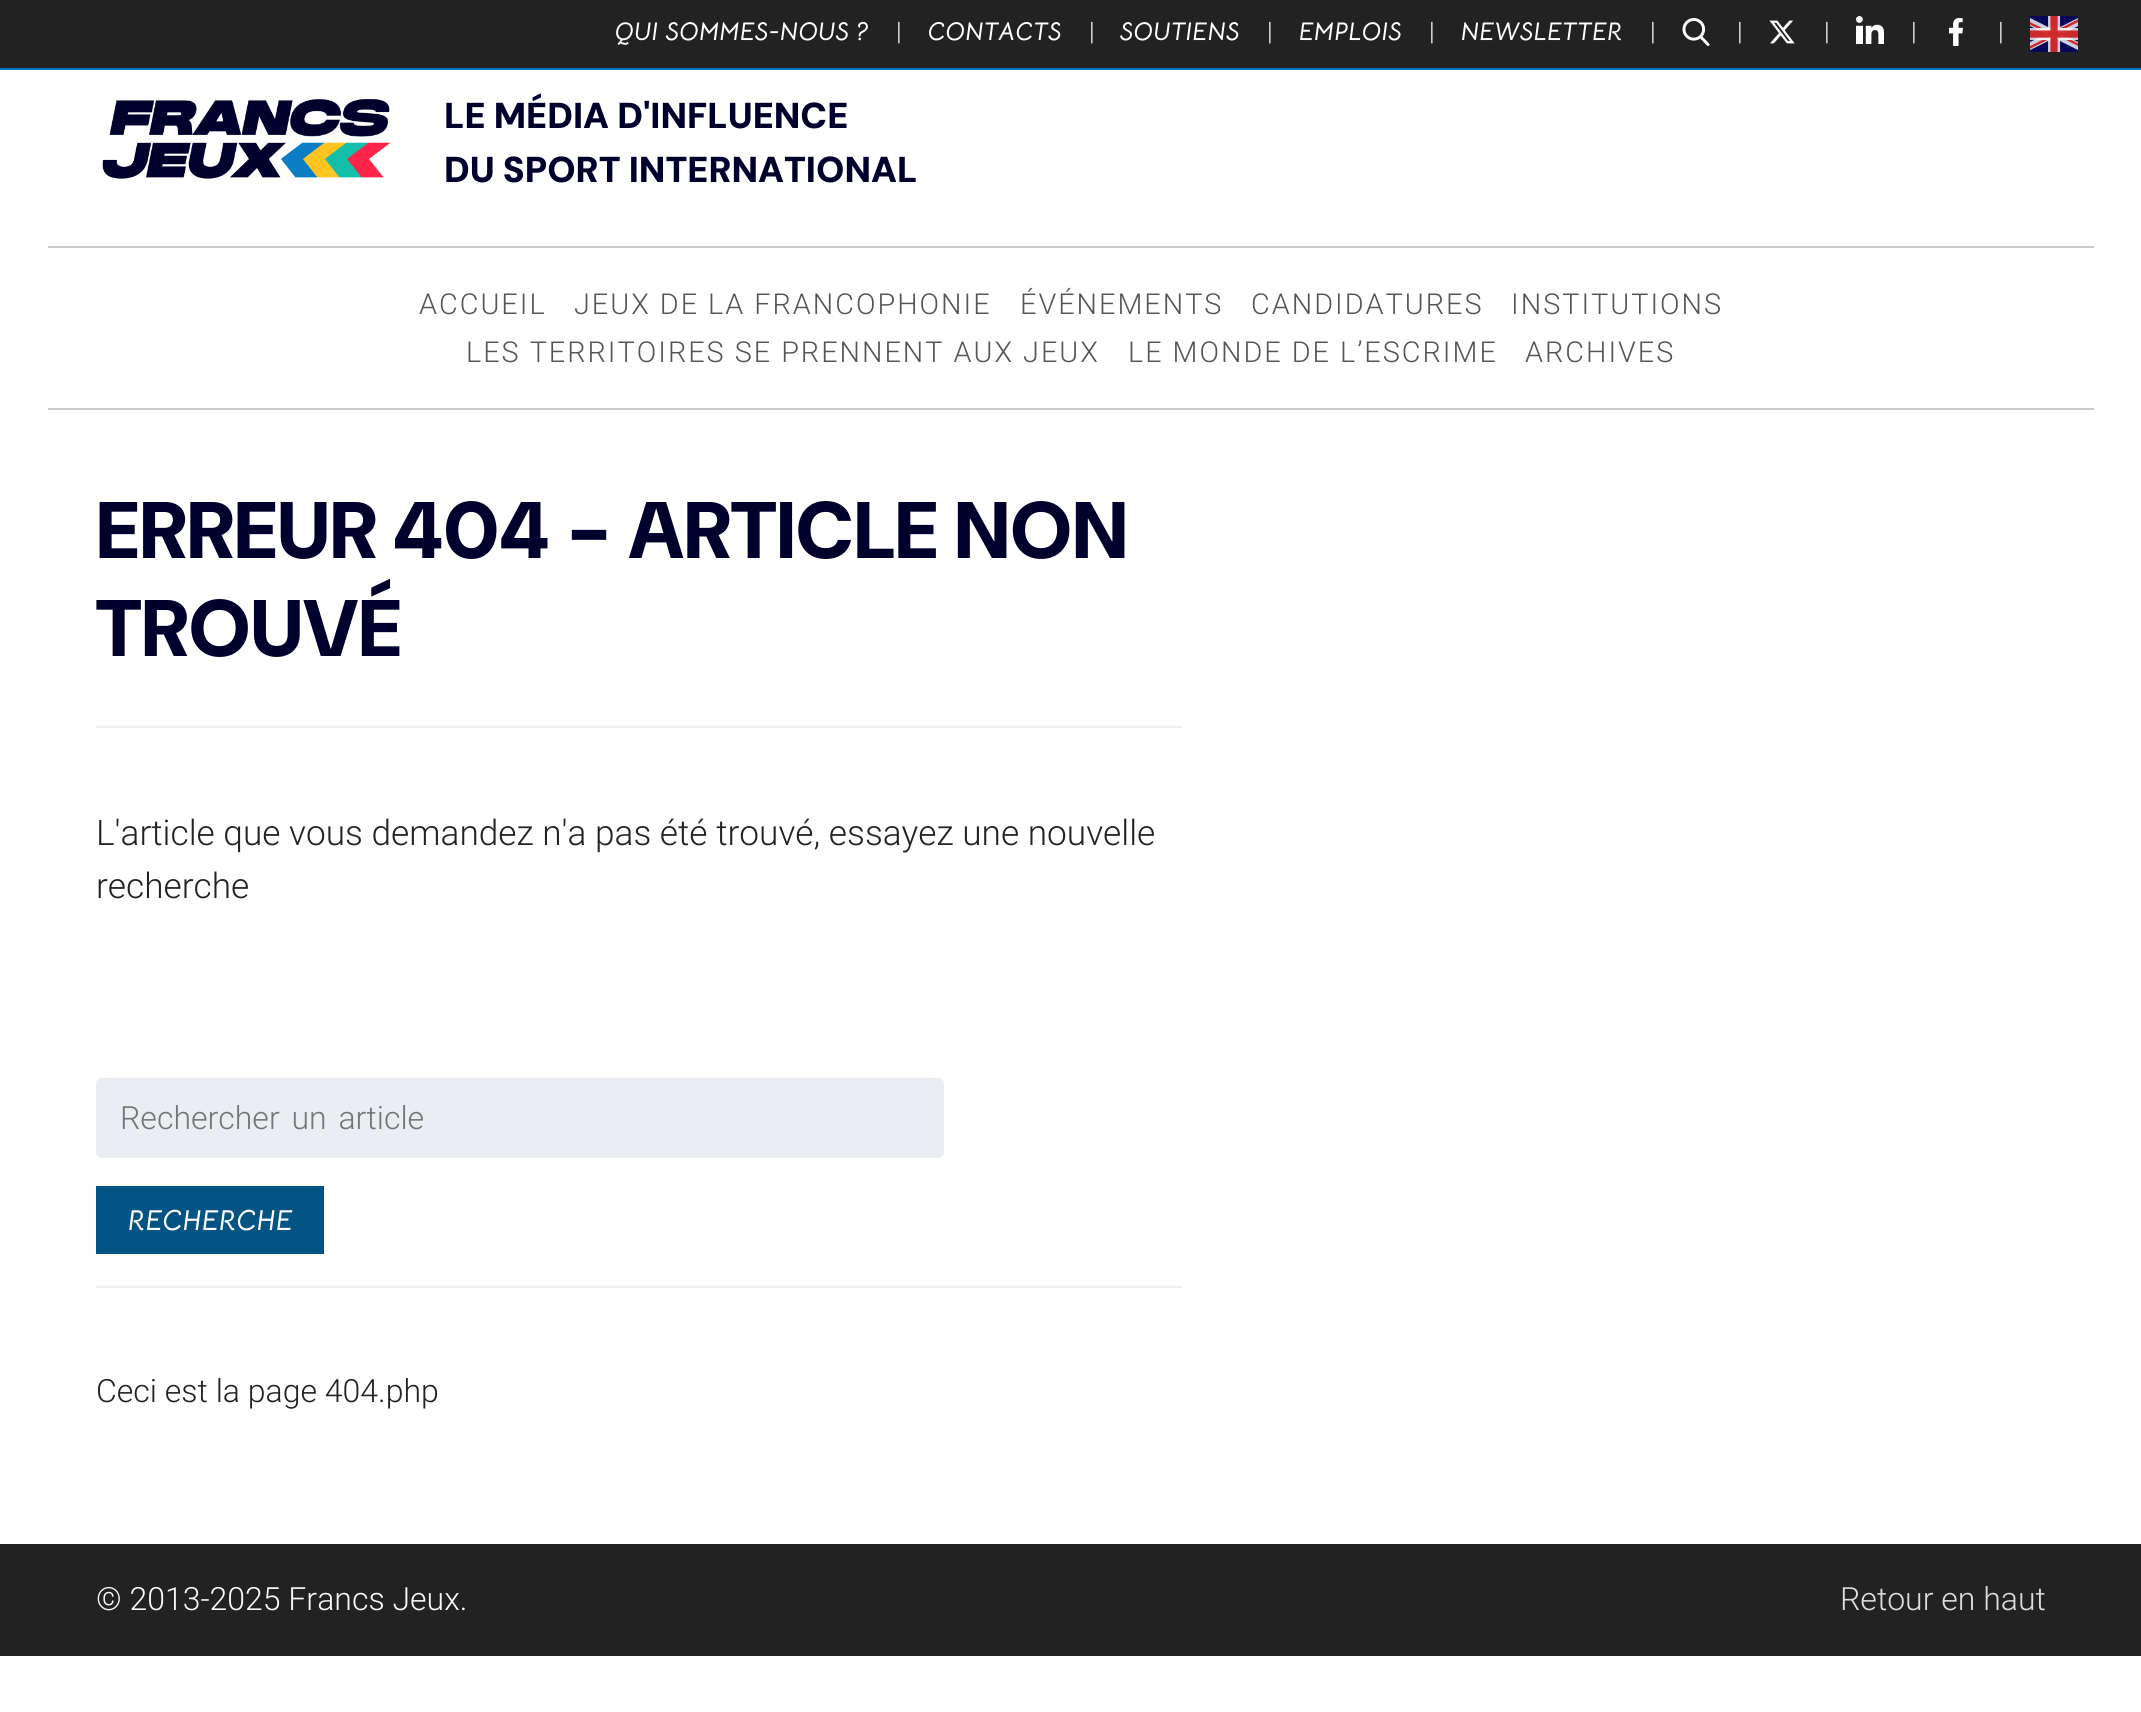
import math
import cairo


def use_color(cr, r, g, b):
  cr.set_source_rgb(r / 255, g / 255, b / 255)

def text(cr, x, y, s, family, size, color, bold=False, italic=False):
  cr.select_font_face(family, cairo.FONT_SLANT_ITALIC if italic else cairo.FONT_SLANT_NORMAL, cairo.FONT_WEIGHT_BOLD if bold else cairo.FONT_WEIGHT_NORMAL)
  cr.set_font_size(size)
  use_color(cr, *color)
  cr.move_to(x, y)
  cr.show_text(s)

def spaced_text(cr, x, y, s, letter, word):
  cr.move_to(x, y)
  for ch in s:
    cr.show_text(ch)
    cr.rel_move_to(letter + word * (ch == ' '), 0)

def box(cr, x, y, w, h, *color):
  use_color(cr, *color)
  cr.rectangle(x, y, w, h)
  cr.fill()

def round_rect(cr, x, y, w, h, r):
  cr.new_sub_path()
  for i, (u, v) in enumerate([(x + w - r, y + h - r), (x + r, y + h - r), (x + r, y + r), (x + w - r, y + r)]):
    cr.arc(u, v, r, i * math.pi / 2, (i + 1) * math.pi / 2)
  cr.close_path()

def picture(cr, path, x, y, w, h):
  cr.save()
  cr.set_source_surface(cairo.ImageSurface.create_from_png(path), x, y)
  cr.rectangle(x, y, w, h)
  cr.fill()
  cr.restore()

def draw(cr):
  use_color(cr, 255, 255, 255)
  cr.paint()
  box(cr, 0, 0, 2141, 68, 34, 34, 34)
  box(cr, 0, 68, 2141, 2, 0, 119, 189)
  picture(cr, "img_01.png", 1682, 18, 28, 28)
  picture(cr, "img_02.png", 1769, 20, 26, 24)
  picture(cr, "img_03.png", 1856, 16, 28, 28)
  picture(cr, "img_04.png", 1949, 18, 14, 28)
  picture(cr, "img_05.png", 2030, 16, 48, 36)
  picture(cr, "img_06.png", 102, 99, 289, 80)
  box(cr, 48, 246, 2046, 2, 204, 204, 204)
  box(cr, 48, 408, 2046, 2, 204, 204, 204)
  box(cr, 96, 726, 1086, 2, 238, 238, 238)
  use_color(cr, 234, 237, 242)
  round_rect(cr, 96, 1078, 848, 80, 6)
  cr.fill()
  box(cr, 96, 1186, 228, 68, 3, 84, 132)
  box(cr, 96, 1286, 1086, 2, 238, 238, 238)
  box(cr, 0, 1544, 2141, 112, 34, 34, 34)
  text(cr, 615, 40, "QUI SOMMES-NOUS ?", "Bellota Text", 25.5, (255, 255, 255), bold=True, italic=True)
  text(cr, 896, 40, "|", "Roboto Light", 25.5, (255, 255, 255))
  text(cr, 928, 40, "CONTACTS", "Bellota Text", 25.5, (255, 255, 255), bold=True, italic=True)
  text(cr, 1089, 40, "|", "Roboto Light", 25.5, (255, 255, 255))
  text(cr, 1120, 40, "SOUTIENS", "Bellota Text", 25.5, (255, 255, 255), bold=True, italic=True)
  text(cr, 1267, 40, "|", "Roboto Light", 25.5, (255, 255, 255))
  text(cr, 1299, 40, "EMPLOIS", "Bellota Text", 25.5, (255, 255, 255), bold=True, italic=True)
  text(cr, 1429, 40, "|", "Roboto Light", 25.5, (255, 255, 255))
  text(cr, 1461, 40, "NEWSLETTER", "Bellota Text", 25.5, (255, 255, 255), bold=True, italic=True)
  text(cr, 1650, 40, "|", "Roboto Light", 25.5, (255, 255, 255))
  text(cr, 1737, 40, "|", "Roboto Light", 25.5, (255, 255, 255))
  text(cr, 1824, 40, "|", "Roboto Light", 25.5, (255, 255, 255))
  text(cr, 1911, 40, "|", "Roboto Light", 25.5, (255, 255, 255))
  text(cr, 1998, 40, "|", "Roboto Light", 25.5, (255, 255, 255))
  text(cr, 444, 128, "LE MÉDIA D'INFLUENCE", "DM Sans Black", 36, (0, 0, 45))
  text(cr, 444, 182, "DU SPORT INTERNATIONAL", "DM Sans Black", 36, (0, 0, 45))
  cr.select_font_face("Roboto Light")
  cr.set_font_size(28.8)
  use_color(cr, 85, 85, 85)
  spaced_text(cr, 419, 314, "ACCUEIL", 2, 0)
  spaced_text(cr, 574, 314, "JEUX DE LA FRANCOPHONIE", 2, 0)
  spaced_text(cr, 1020, 314, "ÉVÉNEMENTS", 2, 0)
  spaced_text(cr, 1251, 314, "CANDIDATURES", 2, 0)
  spaced_text(cr, 1511, 314, "INSTITUTIONS", 2, 0)
  spaced_text(cr, 466, 362, "LES TERRITOIRES SE PRENNENT AUX JEUX", 2, 0)
  spaced_text(cr, 1128, 362, "LE MONDE DE L’ESCRIME", 2, 0)
  spaced_text(cr, 1525, 362, "ARCHIVES", 2, 0)
  text(cr, 96, 558, "ERREUR 404 - ARTICLE NON", "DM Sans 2 Black", 80, (0, 0, 45))
  text(cr, 96, 656, "TROUVÉ", "DM Sans 2 Black", 80, (0, 0, 45))
  text(cr, 96, 845, "L'article que vous demandez n'a pas été trouvé, essayez une nouvelle", "Roboto Light", 35.2, (34, 34, 34))
  text(cr, 96, 898, "recherche", "Roboto Light", 35.2, (34, 34, 34))
  cr.set_font_size(32)
  use_color(cr, 117, 117, 117)
  spaced_text(cr, 120, 1129, "Rechercher un article", 0, 4)
  text(cr, 128, 1230, "RECHERCHE", "Bellota Text", 28.8, (255, 255, 255), bold=True, italic=True)
  text(cr, 96, 1402, "Ceci est la page 404.php", "Roboto Light", 32, (34, 34, 34))
  text(cr, 96, 1610, "© 2013-2025 Francs Jeux.", "Roboto Light", 32, (248, 249, 250))
  text(cr, 1840, 1610, "Retour en haut", "Roboto Light", 32, (221, 221, 221))


surface = cairo.ImageSurface(cairo.FORMAT_RGB24, 2141, 1712)
cr = cairo.Context(surface)
options = cairo.FontOptions()
options.set_hint_metrics(cairo.HINT_METRICS_OFF)
options.set_hint_style(cairo.HINT_STYLE_NONE)
cr.set_font_options(options)
cr.set_miter_limit(4)
draw(cr)
surface.write_to_png("out.png")
